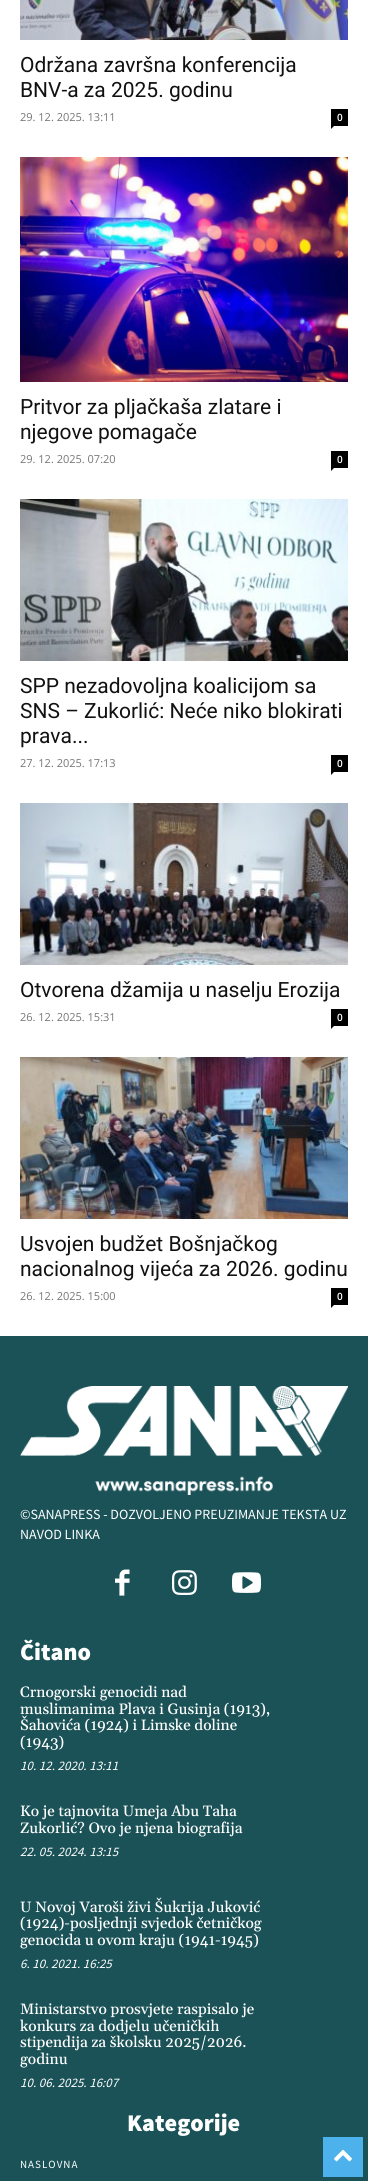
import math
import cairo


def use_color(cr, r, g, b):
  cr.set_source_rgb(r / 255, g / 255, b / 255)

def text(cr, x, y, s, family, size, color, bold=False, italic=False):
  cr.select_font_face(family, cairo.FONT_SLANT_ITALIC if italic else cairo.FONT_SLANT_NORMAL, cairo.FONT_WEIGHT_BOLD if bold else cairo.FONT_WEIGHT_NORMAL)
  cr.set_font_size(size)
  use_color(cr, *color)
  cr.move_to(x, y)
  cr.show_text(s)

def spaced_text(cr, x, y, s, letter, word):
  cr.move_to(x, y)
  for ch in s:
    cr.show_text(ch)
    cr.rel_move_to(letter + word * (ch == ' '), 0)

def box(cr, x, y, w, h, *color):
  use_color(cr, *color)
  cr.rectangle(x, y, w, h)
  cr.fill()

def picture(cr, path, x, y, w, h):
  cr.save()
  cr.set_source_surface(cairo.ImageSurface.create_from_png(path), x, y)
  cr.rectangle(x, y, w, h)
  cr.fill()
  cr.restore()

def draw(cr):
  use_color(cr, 255, 255, 255)
  cr.paint()
  picture(cr, "img_01.png", 20, 0, 328, 40)
  box(cr, 331, 109, 17, 17, 0, 0, 0)
  cr.new_path()
  cr.move_to(331, 126)
  cr.line_to(334, 126)
  cr.line_to(331, 129)
  cr.close_path()
  cr.fill()
  picture(cr, "img_02.png", 20, 157, 328, 225)
  box(cr, 331, 451, 17, 17, 0, 0, 0)
  cr.new_path()
  cr.move_to(331, 468)
  cr.line_to(334, 468)
  cr.line_to(331, 471)
  cr.close_path()
  cr.fill()
  picture(cr, "img_03.png", 20, 499, 328, 162)
  box(cr, 331, 755, 17, 17, 0, 0, 0)
  cr.new_path()
  cr.move_to(331, 772)
  cr.line_to(334, 772)
  cr.line_to(331, 775)
  cr.close_path()
  cr.fill()
  picture(cr, "img_04.png", 20, 803, 328, 162)
  box(cr, 331, 1009, 17, 17, 0, 0, 0)
  cr.new_path()
  cr.move_to(331, 1026)
  cr.line_to(334, 1026)
  cr.line_to(331, 1029)
  cr.close_path()
  cr.fill()
  picture(cr, "img_05.png", 20, 1057, 328, 162)
  box(cr, 331, 1288, 17, 17, 0, 0, 0)
  cr.new_path()
  cr.move_to(331, 1305)
  cr.line_to(334, 1305)
  cr.line_to(331, 1308)
  cr.close_path()
  cr.fill()
  box(cr, 0, 1336, 368, 845, 26, 82, 87)
  picture(cr, "img_06.png", 20, 1386, 328, 109)
  picture(cr, "img_07.png", 115, 1569, 15, 27)
  picture(cr, "img_08.png", 172, 1570, 25, 25)
  picture(cr, "img_09.png", 232, 1572, 29, 21)
  box(cr, 323, 2137, 40, 40, 77, 178, 236)
  picture(cr, "img_10.png", 334, 2149, 18, 13)
  text(cr, 20, 72, "Održana završna konferencija", "Roboto", 21, (17, 17, 17))
  text(cr, 20, 97, "BNV-a za 2025. godinu", "Roboto", 21, (17, 17, 17))
  text(cr, 20, 121, "29. 12. 2025. 13:11", "Open Sans", 11, (118, 118, 118))
  text(cr, 337, 121, "0", "Open Sans SemiBold", 10, (255, 255, 255))
  text(cr, 20, 414, "Pritvor za pljačkaša zlatare i", "Roboto", 21, (17, 17, 17))
  text(cr, 20, 439, "njegove pomagače", "Roboto", 21, (17, 17, 17))
  text(cr, 20, 463, "29. 12. 2025. 07:20", "Open Sans", 11, (118, 118, 118))
  text(cr, 337, 463, "0", "Open Sans SemiBold", 10, (255, 255, 255))
  text(cr, 20, 693, "SPP nezadovoljna koalicijom sa", "Roboto", 21, (17, 17, 17))
  text(cr, 20, 718, "SNS – Zukorlić: Neće niko blokirati", "Roboto", 21, (17, 17, 17))
  text(cr, 20, 743, "prava...", "Roboto", 21, (17, 17, 17))
  text(cr, 20, 767, "27. 12. 2025. 17:13", "Open Sans", 11, (118, 118, 118))
  text(cr, 337, 767, "0", "Open Sans SemiBold", 10, (255, 255, 255))
  text(cr, 20, 997, "Otvorena džamija u naselju Erozija", "Roboto", 21, (17, 17, 17))
  text(cr, 20, 1021, "26. 12. 2025. 15:31", "Open Sans", 11, (118, 118, 118))
  text(cr, 337, 1021, "0", "Open Sans SemiBold", 10, (255, 255, 255))
  text(cr, 20, 1251, "Usvojen budžet Bošnjačkog", "Roboto", 21, (17, 17, 17))
  text(cr, 20, 1276, "nacionalnog vijeća za 2026. godinu", "Roboto", 21, (17, 17, 17))
  text(cr, 20, 1300, "26. 12. 2025. 15:00", "Open Sans", 11, (118, 118, 118))
  text(cr, 337, 1300, "0", "Open Sans SemiBold", 10, (255, 255, 255))
  text(cr, 20, 1519, "©SANAPRESS - DOZVOLJENO PREUZIMANJE TEKSTA UZ", "Source Sans Pro", 14, (255, 255, 255))
  text(cr, 20, 1539, "NAVOD LINKA", "Source Sans Pro", 14, (255, 255, 255))
  text(cr, 20, 1660, "Čitano", "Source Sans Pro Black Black", 24, (255, 255, 255))
  text(cr, 20, 1697, "Crnogorski genocidi nad", "Gelasio Medium", 15, (255, 255, 255))
  text(cr, 20, 1714, "muslimanima Plava i Gusinja (1913),", "Gelasio Medium", 15, (255, 255, 255))
  text(cr, 20, 1730, "Šahovića (1924) i Limske doline", "Gelasio Medium", 15, (255, 255, 255))
  text(cr, 20, 1747, "(1943)", "Gelasio Medium", 15, (255, 255, 255))
  text(cr, 20, 1770, "10. 12. 2020. 13:11", "Source Sans Pro", 13, (255, 255, 255), italic=True)
  text(cr, 20, 1816, "Ko je tajnovita Umeja Abu Taha", "Gelasio Medium", 15, (255, 255, 255))
  text(cr, 20, 1833, "Zukorlić? Ovo je njena biografija", "Gelasio Medium", 15, (255, 255, 255))
  text(cr, 20, 1856, "22. 05. 2024. 13:15", "Source Sans Pro", 13, (255, 255, 255), italic=True)
  text(cr, 20, 1912, "U Novoj Varoši živi Šukrija Juković", "Gelasio Medium", 15, (255, 255, 255))
  text(cr, 20, 1928, "(1924)-posljednji svjedok četničkog", "Gelasio Medium", 15, (255, 255, 255))
  text(cr, 20, 1945, "genocida u ovom kraju (1941-1945)", "Gelasio Medium", 15, (255, 255, 255))
  text(cr, 20, 1968, "6. 10. 2021. 16:25", "Source Sans Pro", 13, (255, 255, 255), italic=True)
  text(cr, 20, 2014, "Ministarstvo prosvjete raspisalo je", "Gelasio Medium", 15, (255, 255, 255))
  text(cr, 20, 2031, "konkurs za dodjelu učeničkih", "Gelasio Medium", 15, (255, 255, 255))
  text(cr, 20, 2047, "stipendija za školsku 2025/2026.", "Gelasio Medium", 15, (255, 255, 255))
  text(cr, 20, 2064, "godinu", "Gelasio Medium", 15, (255, 255, 255))
  text(cr, 20, 2087, "10. 06. 2025. 16:07", "Source Sans Pro", 13, (255, 255, 255), italic=True)
  text(cr, 127, 2131, "Kategorije", "Source Sans Pro Black Black", 24, (255, 255, 255))
  cr.select_font_face("Source Sans Pro")
  cr.set_font_size(11)
  spaced_text(cr, 20, 2168, "NASLOVNA", 1, 0)


surface = cairo.ImageSurface(cairo.FORMAT_RGB24, 368, 2181)
cr = cairo.Context(surface)
options = cairo.FontOptions()
options.set_hint_metrics(cairo.HINT_METRICS_OFF)
options.set_hint_style(cairo.HINT_STYLE_NONE)
cr.set_font_options(options)
cr.set_miter_limit(4)
draw(cr)
surface.write_to_png("out.png")
